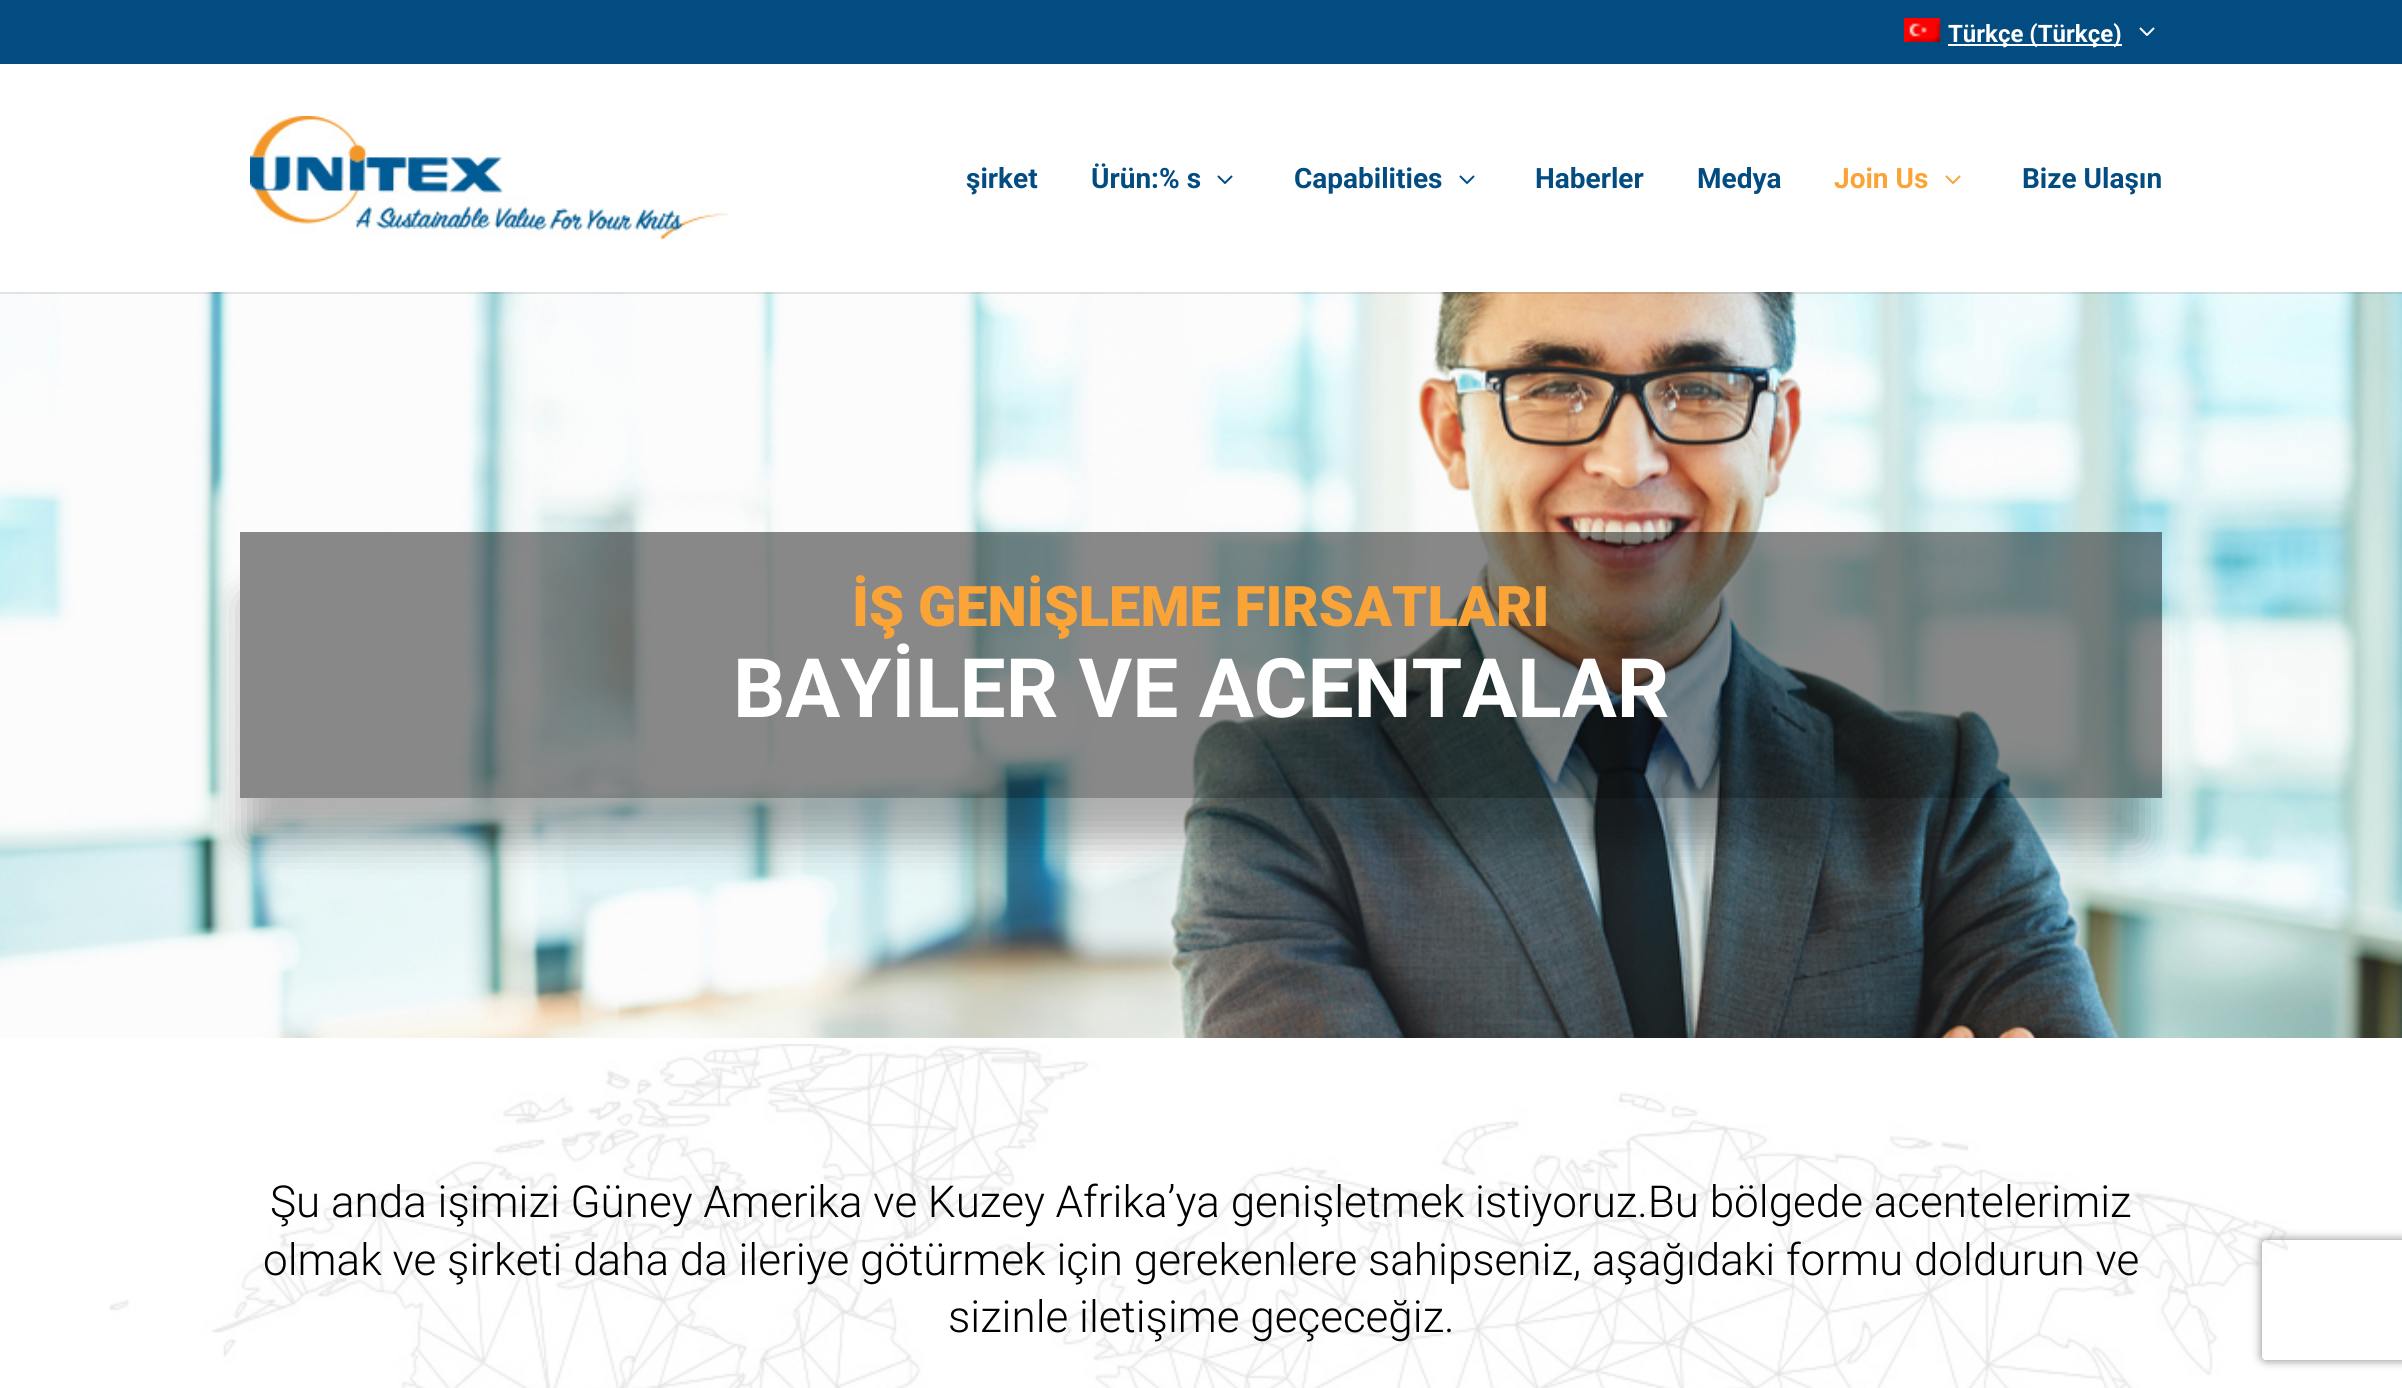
import math
import cairo


def use_color(cr, r, g, b):
  cr.set_source_rgb(r / 255, g / 255, b / 255)

def text(cr, x, y, s, family, size, color, bold=False, italic=False):
  cr.select_font_face(family, cairo.FONT_SLANT_ITALIC if italic else cairo.FONT_SLANT_NORMAL, cairo.FONT_WEIGHT_BOLD if bold else cairo.FONT_WEIGHT_NORMAL)
  cr.set_font_size(size)
  use_color(cr, *color)
  cr.move_to(x, y)
  cr.show_text(s)

def box(cr, x, y, w, h, *color):
  use_color(cr, *color)
  cr.rectangle(x, y, w, h)
  cr.fill()

def round_rect(cr, x, y, w, h, r):
  cr.new_sub_path()
  for i, (u, v) in enumerate([(x + w - r, y + h - r), (x + r, y + h - r), (x + r, y + r), (x + w - r, y + r)]):
    cr.arc(u, v, r, i * math.pi / 2, (i + 1) * math.pi / 2)
  cr.close_path()

def shadow(cr, x, y, w, h, r, blur, alpha):
  cr.push_group_with_content(cairo.CONTENT_ALPHA)
  cr.set_operator(cairo.OPERATOR_SOURCE)
  for i in range(15, -16, -2):
    e = blur * i / 6
    if min(w, h) + 2 * e > 0:
      cr.set_source_rgba(0, 0, 0, alpha * math.erfc((i - 1) / 8.5) / 2)
      round_rect(cr, x - e, y - e, w + 2 * e, h + 2 * e, max(0, min(r + e + blur * .6, min(w, h) / 2 + e)))
      cr.fill()
  cr.mask(cr.pop_group())

def picture(cr, path, x, y, w, h):
  cr.save()
  cr.set_source_surface(cairo.ImageSurface.create_from_png(path), x, y)
  cr.rectangle(x, y, w, h)
  cr.fill()
  cr.restore()

def draw(cr):
  use_color(cr, 2, 76, 130)
  cr.paint()
  picture(cr, "img_01.png", 1904, 18, 37, 24)
  box(cr, 1948, 44, 174, 2, 255, 255, 255)
  picture(cr, "img_02.png", 2139, 27, 16, 9)
  picture(cr, "img_06.png", 0, 292, 2402, 746)
  cr.set_source_rgba(0, 0, 0, 0.1)
  cr.rectangle(0, 292, 2402, 2)
  cr.fill()
  box(cr, 0, 64, 2402, 228, 255, 255, 255)
  picture(cr, "img_03.png", 250, 116, 478, 124)
  picture(cr, "img_04.png", 1217, 175, 16, 9)
  picture(cr, "img_04.png", 1459, 175, 16, 9)
  picture(cr, "img_05.png", 1945, 175, 16, 9)
  cr.save()
  cr.set_fill_rule(cairo.FILL_RULE_EVEN_ODD)
  cr.new_path()
  cr.move_to(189, 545)
  cr.line_to(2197, 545)
  cr.line_to(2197, 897)
  cr.line_to(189, 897)
  cr.close_path()
  cr.move_to(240, 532)
  cr.line_to(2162, 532)
  cr.line_to(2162, 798)
  cr.line_to(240, 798)
  cr.close_path()
  cr.clip()
  use_color(cr, 0, 0, 0)
  shadow(cr, 244, 600, 1898, 242, 0, 18, 0.3)
  cr.restore()
  cr.set_source_rgba(0, 0, 0, 0.46)
  cr.rectangle(240, 532, 1922, 266)
  cr.fill()
  box(cr, 0, 1038, 2402, 350, 255, 255, 255)
  picture(cr, "img_07.png", 109, 1044, 2180, 344)
  cr.save()
  cr.set_fill_rule(cairo.FILL_RULE_EVEN_ODD)
  cr.new_path()
  cr.move_to(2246, 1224)
  cr.line_to(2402, 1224)
  cr.line_to(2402, 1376)
  cr.line_to(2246, 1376)
  cr.close_path()
  cr.move_to(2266, 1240)
  cr.line_to(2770, 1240)
  cr.curve_to(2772, 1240, 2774, 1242, 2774, 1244)
  cr.line_to(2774, 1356)
  cr.curve_to(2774, 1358, 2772, 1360, 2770, 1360)
  cr.line_to(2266, 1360)
  cr.curve_to(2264, 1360, 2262, 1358, 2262, 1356)
  cr.line_to(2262, 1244)
  cr.curve_to(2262, 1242, 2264, 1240, 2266, 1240)
  cr.close_path()
  cr.clip()
  use_color(cr, 128, 128, 128)
  shadow(cr, 2262, 1240, 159, 120, 4, 5, 1)
  cr.restore()
  text(cr, 1948, 42, "Türkçe (Türkçe)", "Roboto", 24, (255, 255, 255), bold=True)
  text(cr, 966, 188, "şirket", "Roboto", 28, (2, 76, 130), bold=True)
  text(cr, 1091, 188, "Ürün:% s", "Roboto", 28, (2, 76, 130), bold=True)
  text(cr, 1294, 188, "Capabilities", "Roboto", 28, (2, 76, 130), bold=True)
  text(cr, 1535, 188, "Haberler", "Roboto", 28, (2, 76, 130), bold=True)
  text(cr, 1697, 188, "Medya", "Roboto", 28, (2, 76, 130), bold=True)
  text(cr, 1834, 188, "Join Us", "Roboto", 28, (250, 163, 55), bold=True)
  text(cr, 2022, 188, "Bize Ulaşın", "Roboto", 28, (2, 76, 130), bold=True)
  text(cr, 852, 626, "İŞ GENİŞLEME FIRSATLARI", "Roboto Black", 56, (250, 163, 55))
  text(cr, 733, 717, "BAYİLER VE ACENTALAR", "Roboto", 82, (255, 255, 255), bold=True)
  text(cr, 270, 1217, "Şu anda işimizi Güney Amerika ve Kuzey Afrika’ya genişletmek istiyoruz.Bu bölgede acentelerimiz", "Roboto Light", 44, (0, 0, 0))
  text(cr, 263, 1275, "olmak ve şirketi daha da ileriye götürmek için gerekenlere sahipseniz, aşağıdaki formu doldurun ve", "Roboto Light", 44, (0, 0, 0))
  text(cr, 948, 1332, "sizinle iletişime geçeceğiz.", "Roboto Light", 44, (0, 0, 0))


surface = cairo.ImageSurface(cairo.FORMAT_RGB24, 2402, 1388)
cr = cairo.Context(surface)
options = cairo.FontOptions()
options.set_hint_metrics(cairo.HINT_METRICS_OFF)
options.set_hint_style(cairo.HINT_STYLE_NONE)
cr.set_font_options(options)
cr.set_miter_limit(4)
draw(cr)
surface.write_to_png("out.png")
